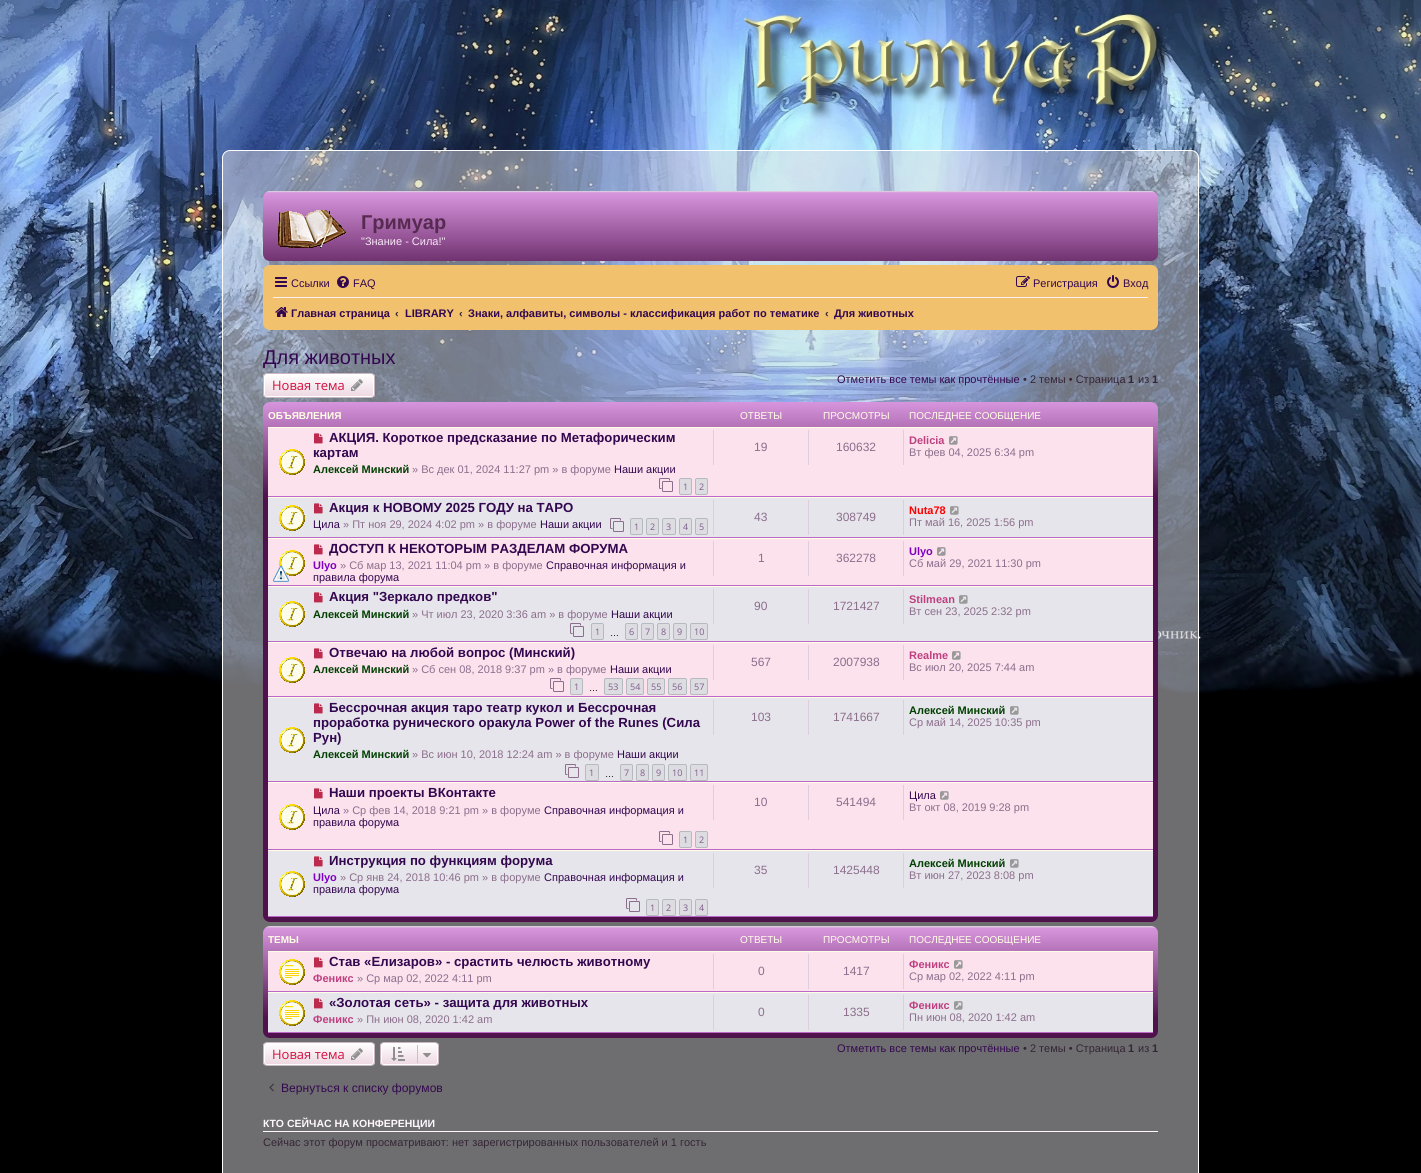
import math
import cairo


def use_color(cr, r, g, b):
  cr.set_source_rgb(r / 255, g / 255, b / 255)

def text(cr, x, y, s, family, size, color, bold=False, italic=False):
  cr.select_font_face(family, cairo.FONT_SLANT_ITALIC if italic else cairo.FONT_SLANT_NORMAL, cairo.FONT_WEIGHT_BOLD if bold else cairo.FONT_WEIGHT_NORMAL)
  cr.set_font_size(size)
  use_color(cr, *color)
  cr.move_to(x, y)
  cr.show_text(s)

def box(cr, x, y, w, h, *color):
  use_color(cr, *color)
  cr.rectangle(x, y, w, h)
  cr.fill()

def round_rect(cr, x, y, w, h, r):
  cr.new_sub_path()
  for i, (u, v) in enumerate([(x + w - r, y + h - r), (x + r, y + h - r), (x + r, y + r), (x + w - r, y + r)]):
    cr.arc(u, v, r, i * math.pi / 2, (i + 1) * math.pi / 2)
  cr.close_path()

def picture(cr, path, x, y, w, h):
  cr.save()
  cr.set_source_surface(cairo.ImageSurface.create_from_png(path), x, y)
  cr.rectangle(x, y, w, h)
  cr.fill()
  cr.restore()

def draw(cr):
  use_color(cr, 0, 0, 0)
  cr.paint()
  picture(cr, "img_01.png", 0, 0, 1421, 698)
  cr.set_source_rgba(0.867, 0.863, 0.882, 0.5)
  round_rect(cr, 222.5, 150.5, 976, 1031, 7.5)
  cr.fill_preserve()
  use_color(cr, 255, 255, 255)
  cr.set_line_width(1)
  cr.stroke()
  gradient = cairo.LinearGradient(711, 191, 711, 283)
  gradient.add_color_stop_rgba(0, 0.867, 0.863, 0.882, 1)
  gradient.add_color_stop_rgba(0.02, 0.843, 0.584, 0.867, 1)
  gradient.add_color_stop_rgba(1, 0.314, 0.071, 0.302, 1)
  cr.set_source(gradient)
  round_rect(cr, 263, 191, 895, 70, 7)
  cr.fill()
  picture(cr, "img_02.png", 278, 210, 69, 38)
  use_color(cr, 241, 193, 109)
  round_rect(cr, 263, 265, 895, 65, 7)
  cr.fill()
  picture(cr, "img_03.png", 275, 277, 12, 10)
  picture(cr, "img_04.png", 337, 276, 12, 12)
  picture(cr, "img_05.png", 1016, 276, 14, 11)
  picture(cr, "img_06.png", 1107, 275, 12, 13)
  box(cr, 273, 297, 875, 1, 248, 239, 243)
  picture(cr, "img_07.png", 275, 307, 13, 10)
  cr.save()
  round_rect(cr, 263, 373, 112, 25, 4)
  cr.clip()
  gradient = cairo.LinearGradient(319, 374, 319, 397)
  gradient.add_color_stop_rgba(0, 1, 1, 1, 1)
  gradient.add_color_stop_rgba(1, 0.929, 0.843, 0.882, 1)
  cr.set_source(gradient)
  cr.rectangle(263, 374, 112, 23)
  cr.fill()
  cr.restore()
  round_rect(cr, 264.5, 374.5, 109, 22, 2.5)
  use_color(cr, 255, 255, 255)
  cr.stroke()
  round_rect(cr, 263.5, 373.5, 111, 24, 3.5)
  use_color(cr, 202, 182, 191)
  cr.stroke()
  picture(cr, "img_08.png", 351, 379, 12, 12)
  gradient = cairo.LinearGradient(711, 402, 711, 922)
  gradient.add_color_stop_rgba(0, 0.867, 0.863, 0.882, 1)
  gradient.add_color_stop_rgba(0, 0.843, 0.584, 0.867, 1)
  gradient.add_color_stop_rgba(0.18, 0.314, 0.071, 0.302, 1)
  gradient.add_color_stop_rgba(1, 0.314, 0.071, 0.302, 1)
  cr.set_source(gradient)
  round_rect(cr, 263, 402, 895, 520, 7)
  cr.fill()
  box(cr, 268, 428, 885, 68, 251, 226, 237)
  box(cr, 268, 427, 885, 1, 255, 255, 229)
  box(cr, 268, 496, 885, 1, 188, 104, 201)
  picture(cr, "img_09.png", 279, 449, 26, 26)
  picture(cr, "img_10.png", 314, 433, 9, 11)
  picture(cr, "img_11.png", 659, 478, 14, 14)
  use_color(cr, 221, 220, 225)
  round_rect(cr, 679.5, 478.5, 12, 16, 1.5)
  cr.fill_preserve()
  use_color(cr, 180, 186, 192)
  cr.stroke()
  use_color(cr, 221, 220, 225)
  round_rect(cr, 695.5, 478.5, 12, 16, 1.5)
  cr.fill_preserve()
  use_color(cr, 180, 186, 192)
  cr.stroke()
  box(cr, 713, 430, 1, 35, 222, 205, 223)
  box(cr, 808, 430, 1, 35, 222, 205, 223)
  box(cr, 903, 430, 1, 35, 222, 205, 223)
  picture(cr, "img_12.png", 949, 436, 9, 9)
  box(cr, 268, 498, 885, 39, 230, 229, 235)
  box(cr, 268, 497, 885, 1, 255, 255, 229)
  box(cr, 268, 537, 885, 1, 188, 104, 201)
  picture(cr, "img_13.png", 279, 505, 26, 26)
  picture(cr, "img_14.png", 314, 503, 9, 11)
  picture(cr, "img_15.png", 610, 518, 14, 14)
  use_color(cr, 221, 220, 225)
  round_rect(cr, 630.5, 518.5, 12, 16, 1.5)
  cr.fill_preserve()
  use_color(cr, 180, 186, 192)
  cr.stroke()
  use_color(cr, 221, 220, 225)
  round_rect(cr, 646.5, 518.5, 12, 16, 1.5)
  cr.fill_preserve()
  use_color(cr, 180, 186, 192)
  cr.stroke()
  use_color(cr, 221, 220, 225)
  round_rect(cr, 662.5, 518.5, 13, 16, 1.5)
  cr.fill_preserve()
  use_color(cr, 180, 186, 192)
  cr.stroke()
  use_color(cr, 221, 220, 225)
  round_rect(cr, 679.5, 518.5, 12, 16, 1.5)
  cr.fill_preserve()
  use_color(cr, 180, 186, 192)
  cr.stroke()
  use_color(cr, 221, 220, 225)
  round_rect(cr, 695.5, 518.5, 12, 16, 1.5)
  cr.fill_preserve()
  use_color(cr, 180, 186, 192)
  cr.stroke()
  box(cr, 713, 500, 1, 35, 222, 205, 223)
  box(cr, 808, 500, 1, 35, 222, 205, 223)
  box(cr, 903, 500, 1, 35, 222, 205, 223)
  picture(cr, "img_16.png", 950, 506, 9, 9)
  box(cr, 268, 539, 885, 46, 251, 226, 237)
  box(cr, 268, 538, 885, 1, 255, 255, 229)
  box(cr, 268, 585, 885, 1, 188, 104, 201)
  picture(cr, "img_09.png", 279, 550, 26, 26)
  picture(cr, "img_17.png", 273, 566, 16, 16)
  picture(cr, "img_10.png", 314, 544, 9, 11)
  box(cr, 713, 541, 1, 35, 222, 205, 223)
  box(cr, 808, 541, 1, 35, 222, 205, 223)
  box(cr, 903, 541, 1, 35, 222, 205, 223)
  picture(cr, "img_12.png", 937, 547, 9, 9)
  box(cr, 268, 587, 885, 54, 230, 229, 235)
  box(cr, 268, 586, 885, 1, 255, 255, 229)
  box(cr, 268, 641, 885, 1, 188, 104, 201)
  picture(cr, "img_13.png", 279, 601, 26, 26)
  picture(cr, "img_14.png", 314, 592, 9, 11)
  picture(cr, "img_15.png", 570, 623, 14, 14)
  use_color(cr, 221, 220, 225)
  round_rect(cr, 591.5, 623.5, 12, 16, 1.5)
  cr.fill_preserve()
  use_color(cr, 180, 186, 192)
  cr.stroke()
  use_color(cr, 221, 220, 225)
  round_rect(cr, 625.5, 623.5, 12, 16, 1.5)
  cr.fill_preserve()
  use_color(cr, 180, 186, 192)
  cr.stroke()
  use_color(cr, 221, 220, 225)
  round_rect(cr, 641.5, 623.5, 12, 16, 1.5)
  cr.fill_preserve()
  use_color(cr, 180, 186, 192)
  cr.stroke()
  use_color(cr, 221, 220, 225)
  round_rect(cr, 657.5, 623.5, 12, 16, 1.5)
  cr.fill_preserve()
  use_color(cr, 180, 186, 192)
  cr.stroke()
  use_color(cr, 221, 220, 225)
  round_rect(cr, 673.5, 623.5, 13, 16, 1.5)
  cr.fill_preserve()
  use_color(cr, 180, 186, 192)
  cr.stroke()
  use_color(cr, 221, 220, 225)
  round_rect(cr, 690.5, 623.5, 17, 16, 1.5)
  cr.fill_preserve()
  use_color(cr, 180, 186, 192)
  cr.stroke()
  box(cr, 713, 589, 1, 35, 222, 205, 223)
  box(cr, 808, 589, 1, 35, 222, 205, 223)
  box(cr, 903, 589, 1, 35, 222, 205, 223)
  picture(cr, "img_16.png", 959, 595, 9, 9)
  box(cr, 268, 643, 885, 53, 251, 226, 237)
  box(cr, 268, 642, 885, 1, 255, 255, 229)
  box(cr, 268, 696, 885, 1, 188, 104, 201)
  picture(cr, "img_09.png", 279, 657, 26, 26)
  picture(cr, "img_10.png", 314, 648, 9, 11)
  picture(cr, "img_11.png", 550, 678, 14, 14)
  use_color(cr, 221, 220, 225)
  round_rect(cr, 570.5, 678.5, 12, 16, 1.5)
  cr.fill_preserve()
  use_color(cr, 180, 186, 192)
  cr.stroke()
  use_color(cr, 221, 220, 225)
  round_rect(cr, 604.5, 678.5, 18, 16, 1.5)
  cr.fill_preserve()
  use_color(cr, 180, 186, 192)
  cr.stroke()
  use_color(cr, 221, 220, 225)
  round_rect(cr, 626.5, 678.5, 17, 16, 1.5)
  cr.fill_preserve()
  use_color(cr, 180, 186, 192)
  cr.stroke()
  use_color(cr, 221, 220, 225)
  round_rect(cr, 647.5, 678.5, 17, 16, 1.5)
  cr.fill_preserve()
  use_color(cr, 180, 186, 192)
  cr.stroke()
  use_color(cr, 221, 220, 225)
  round_rect(cr, 668.5, 678.5, 18, 16, 1.5)
  cr.fill_preserve()
  use_color(cr, 180, 186, 192)
  cr.stroke()
  use_color(cr, 221, 220, 225)
  round_rect(cr, 690.5, 678.5, 17, 16, 1.5)
  cr.fill_preserve()
  use_color(cr, 180, 186, 192)
  cr.stroke()
  box(cr, 713, 645, 1, 35, 222, 205, 223)
  box(cr, 808, 645, 1, 35, 222, 205, 223)
  box(cr, 903, 645, 1, 35, 222, 205, 223)
  picture(cr, "img_12.png", 952, 651, 9, 9)
  box(cr, 268, 698, 885, 83, 230, 229, 235)
  box(cr, 268, 697, 885, 1, 255, 255, 229)
  box(cr, 268, 781, 885, 1, 188, 104, 201)
  picture(cr, "img_13.png", 279, 727, 26, 26)
  picture(cr, "img_14.png", 314, 703, 9, 11)
  picture(cr, "img_15.png", 565, 764, 14, 14)
  use_color(cr, 221, 220, 225)
  round_rect(cr, 585.5, 764.5, 13, 16, 1.5)
  cr.fill_preserve()
  use_color(cr, 180, 186, 192)
  cr.stroke()
  use_color(cr, 221, 220, 225)
  round_rect(cr, 620.5, 764.5, 12, 16, 1.5)
  cr.fill_preserve()
  use_color(cr, 180, 186, 192)
  cr.stroke()
  use_color(cr, 221, 220, 225)
  round_rect(cr, 636.5, 764.5, 12, 16, 1.5)
  cr.fill_preserve()
  use_color(cr, 180, 186, 192)
  cr.stroke()
  use_color(cr, 221, 220, 225)
  round_rect(cr, 652.5, 764.5, 12, 16, 1.5)
  cr.fill_preserve()
  use_color(cr, 180, 186, 192)
  cr.stroke()
  use_color(cr, 221, 220, 225)
  round_rect(cr, 668.5, 764.5, 18, 16, 1.5)
  cr.fill_preserve()
  use_color(cr, 180, 186, 192)
  cr.stroke()
  use_color(cr, 221, 220, 225)
  round_rect(cr, 690.5, 764.5, 17, 16, 1.5)
  cr.fill_preserve()
  use_color(cr, 180, 186, 192)
  cr.stroke()
  box(cr, 713, 700, 1, 35, 222, 205, 223)
  box(cr, 808, 700, 1, 35, 222, 205, 223)
  box(cr, 903, 700, 1, 35, 222, 205, 223)
  picture(cr, "img_16.png", 1010, 706, 9, 9)
  box(cr, 268, 783, 885, 66, 251, 226, 237)
  box(cr, 268, 782, 885, 1, 255, 255, 229)
  box(cr, 268, 849, 885, 1, 188, 104, 201)
  picture(cr, "img_09.png", 279, 804, 26, 26)
  picture(cr, "img_10.png", 314, 788, 9, 11)
  picture(cr, "img_11.png", 659, 831, 14, 14)
  use_color(cr, 221, 220, 225)
  round_rect(cr, 679.5, 831.5, 12, 16, 1.5)
  cr.fill_preserve()
  use_color(cr, 180, 186, 192)
  cr.stroke()
  use_color(cr, 221, 220, 225)
  round_rect(cr, 695.5, 831.5, 12, 16, 1.5)
  cr.fill_preserve()
  use_color(cr, 180, 186, 192)
  cr.stroke()
  box(cr, 713, 785, 1, 35, 222, 205, 223)
  box(cr, 808, 785, 1, 35, 222, 205, 223)
  box(cr, 903, 785, 1, 35, 222, 205, 223)
  picture(cr, "img_12.png", 940, 791, 9, 9)
  box(cr, 268, 851, 885, 65, 230, 229, 235)
  box(cr, 268, 850, 885, 1, 255, 255, 229)
  box(cr, 268, 916, 885, 1, 188, 104, 201)
  picture(cr, "img_13.png", 279, 871, 26, 26)
  picture(cr, "img_14.png", 314, 856, 9, 11)
  picture(cr, "img_15.png", 626, 898, 14, 14)
  use_color(cr, 221, 220, 225)
  round_rect(cr, 646.5, 899.5, 12, 16, 1.5)
  cr.fill_preserve()
  use_color(cr, 180, 186, 192)
  cr.stroke()
  use_color(cr, 221, 220, 225)
  round_rect(cr, 662.5, 899.5, 13, 16, 1.5)
  cr.fill_preserve()
  use_color(cr, 180, 186, 192)
  cr.stroke()
  use_color(cr, 221, 220, 225)
  round_rect(cr, 679.5, 899.5, 12, 16, 1.5)
  cr.fill_preserve()
  use_color(cr, 180, 186, 192)
  cr.stroke()
  use_color(cr, 221, 220, 225)
  round_rect(cr, 695.5, 899.5, 12, 16, 1.5)
  cr.fill_preserve()
  use_color(cr, 180, 186, 192)
  cr.stroke()
  box(cr, 713, 853, 1, 35, 222, 205, 223)
  box(cr, 808, 853, 1, 35, 222, 205, 223)
  box(cr, 903, 853, 1, 35, 222, 205, 223)
  picture(cr, "img_16.png", 1010, 859, 9, 9)
  gradient = cairo.LinearGradient(711, 926, 711, 1038)
  gradient.add_color_stop_rgba(0, 0.867, 0.863, 0.882, 1)
  gradient.add_color_stop_rgba(0.02, 0.843, 0.584, 0.867, 1)
  gradient.add_color_stop_rgba(0.82, 0.314, 0.071, 0.302, 1)
  gradient.add_color_stop_rgba(1, 0.314, 0.071, 0.302, 1)
  cr.set_source(gradient)
  round_rect(cr, 263, 926, 895, 112, 7)
  cr.fill()
  box(cr, 268, 952, 885, 39, 251, 226, 237)
  box(cr, 268, 951, 885, 1, 255, 255, 229)
  box(cr, 268, 991, 885, 1, 188, 104, 201)
  picture(cr, "img_18.png", 279, 959, 26, 26)
  picture(cr, "img_10.png", 314, 957, 9, 11)
  box(cr, 713, 954, 1, 35, 222, 205, 223)
  box(cr, 808, 954, 1, 35, 222, 205, 223)
  box(cr, 903, 954, 1, 35, 222, 205, 223)
  picture(cr, "img_12.png", 954, 960, 9, 9)
  box(cr, 268, 993, 885, 39, 230, 229, 235)
  box(cr, 268, 992, 885, 1, 255, 255, 229)
  box(cr, 268, 1032, 885, 1, 188, 104, 201)
  picture(cr, "img_19.png", 279, 1000, 26, 26)
  picture(cr, "img_14.png", 314, 998, 9, 11)
  box(cr, 713, 995, 1, 35, 222, 205, 223)
  box(cr, 808, 995, 1, 35, 222, 205, 223)
  box(cr, 903, 995, 1, 35, 222, 205, 223)
  picture(cr, "img_16.png", 954, 1001, 9, 9)
  cr.save()
  round_rect(cr, 263, 1042, 112, 24, 4)
  cr.clip()
  gradient = cairo.LinearGradient(319, 1043, 319, 1065)
  gradient.add_color_stop_rgba(0, 1, 1, 1, 1)
  gradient.add_color_stop_rgba(1, 0.929, 0.843, 0.882, 1)
  cr.set_source(gradient)
  cr.rectangle(263, 1043, 112, 22)
  cr.fill()
  cr.restore()
  round_rect(cr, 264.5, 1043.5, 109, 21, 2.5)
  use_color(cr, 255, 255, 255)
  cr.stroke()
  round_rect(cr, 263.5, 1042.5, 111, 23, 3.5)
  use_color(cr, 202, 182, 191)
  cr.stroke()
  picture(cr, "img_20.png", 351, 1048, 12, 12)
  cr.save()
  round_rect(cr, 380, 1042, 59, 24, 4)
  cr.clip()
  gradient = cairo.LinearGradient(410, 1043, 410, 1065)
  gradient.add_color_stop_rgba(0, 1, 1, 1, 1)
  gradient.add_color_stop_rgba(1, 0.929, 0.843, 0.882, 1)
  cr.set_source(gradient)
  cr.rectangle(380, 1043, 59, 22)
  cr.fill()
  cr.restore()
  round_rect(cr, 381.5, 1043.5, 56, 21, 2.5)
  use_color(cr, 255, 255, 255)
  cr.stroke()
  round_rect(cr, 380.5, 1042.5, 58, 23, 3.5)
  use_color(cr, 202, 182, 191)
  cr.stroke()
  picture(cr, "img_21.png", 391, 1047, 14, 14)
  box(cr, 417, 1045, 1, 18, 199, 195, 191)
  picture(cr, "img_22.png", 423, 1053, 8, 5)
  picture(cr, "img_23.png", 269, 1083, 5, 9)
  box(cr, 263, 1131, 895, 1, 254, 247, 254)
  text(cr, 361, 229, "Гримуар", "Liberation Sans", 20, (86, 42, 81), bold=True)
  text(cr, 361, 245, "\"Знание - Сила!\"", "Liberation Sans", 11, (246, 230, 245))
  text(cr, 291, 287, "Ссылки", "Liberation Sans", 11, (51, 7, 79))
  text(cr, 353, 287, "FAQ", "Liberation Sans", 11, (51, 7, 79))
  text(cr, 1033, 287, "Регистрация", "Liberation Sans", 11, (51, 7, 79))
  text(cr, 1123, 287, "Вход", "Liberation Sans", 11, (51, 7, 79))
  text(cr, 291, 317, "Главная страница", "Liberation Sans", 11, (51, 7, 79), bold=True)
  text(cr, 395, 317, "‹", "Liberation Sans", 11, (53, 37, 54), bold=True)
  text(cr, 405, 317, "LIBRARY", "Liberation Sans", 11, (51, 7, 79), bold=True)
  text(cr, 459, 317, "‹", "Liberation Sans", 11, (53, 37, 54), bold=True)
  text(cr, 468, 317, "Знаки, алфавиты, символы - классификация работ по тематике", "Liberation Sans", 11, (51, 7, 79), bold=True)
  text(cr, 825, 317, "‹", "Liberation Sans", 11, (53, 37, 54), bold=True)
  text(cr, 834, 317, "Для животных", "Liberation Sans", 11, (51, 7, 79), bold=True)
  text(cr, 263, 364, "Для животных", "Liberation Sans", 20, (51, 7, 79))
  text(cr, 272, 390, "Новая тема", "Open Sans", 13, (211, 17, 65))
  text(cr, 837, 383, "Отметить все темы как прочтённые", "Liberation Sans", 11, (51, 7, 79))
  text(cr, 1023, 383, "• 2 темы • Страница", "Liberation Sans", 11, (53, 37, 54))
  text(cr, 1128, 383, "1", "Liberation Sans", 11, (53, 37, 54), bold=True)
  text(cr, 1138, 383, "из", "Liberation Sans", 11, (53, 37, 54))
  text(cr, 1152, 383, "1", "Liberation Sans", 11, (53, 37, 54), bold=True)
  text(cr, 268, 419, "ОБЪЯВЛЕНИЯ", "Liberation Sans", 10, (255, 255, 229), bold=True)
  text(cr, 740, 419, "ОТВЕТЫ", "Liberation Sans", 10, (255, 255, 229))
  text(cr, 823, 419, "ПРОСМОТРЫ", "Liberation Sans", 10, (255, 255, 229))
  text(cr, 909, 419, "ПОСЛЕДНЕЕ СООБЩЕНИЕ", "Liberation Sans", 10, (255, 255, 229))
  text(cr, 329, 442, "АКЦИЯ. Короткое предсказание по Метафорическим", "Liberation Sans", 13.2, (51, 7, 79), bold=True)
  text(cr, 313, 457, "картам", "Liberation Sans", 13.2, (51, 7, 79), bold=True)
  text(cr, 313, 473, "Алексей Минский", "Liberation Sans", 11, (0, 64, 0), bold=True)
  text(cr, 412, 473, "» Вс дек 01, 2024 11:27 pm » в форуме", "Liberation Sans", 11, (140, 110, 140))
  text(cr, 614, 473, "Наши акции", "Liberation Sans", 11, (51, 7, 79))
  text(cr, 683, 490, "1", "Open Sans", 9, (124, 93, 140))
  text(cr, 699, 490, "2", "Open Sans", 9, (124, 93, 140))
  text(cr, 754, 451, "19", "Liberation Sans", 12, (140, 110, 140))
  text(cr, 836, 451, "160632", "Liberation Sans", 12, (140, 110, 140))
  text(cr, 909, 444, "Delicia", "Liberation Sans", 11, (191, 64, 128), bold=True)
  text(cr, 909, 456, "Вт фев 04, 2025 6:34 pm", "Liberation Sans", 11, (140, 110, 140))
  text(cr, 329, 512, "Акция к НОВОМУ 2025 ГОДУ на ТАРО", "Liberation Sans", 13.2, (51, 7, 79), bold=True)
  text(cr, 313, 528, "Цила", "Liberation Sans", 11, (51, 7, 79))
  text(cr, 343, 528, "» Пт ноя 29, 2024 4:02 pm » в форуме", "Liberation Sans", 11, (140, 110, 140))
  text(cr, 540, 528, "Наши акции", "Liberation Sans", 11, (51, 7, 79))
  text(cr, 634, 530, "1", "Open Sans", 9, (124, 93, 140))
  text(cr, 650, 530, "2", "Open Sans", 9, (124, 93, 140))
  text(cr, 666, 530, "3", "Open Sans", 9, (124, 93, 140))
  text(cr, 683, 530, "4", "Open Sans", 9, (124, 93, 140))
  text(cr, 699, 530, "5", "Open Sans", 9, (124, 93, 140))
  text(cr, 754, 521, "43", "Liberation Sans", 12, (140, 110, 140))
  text(cr, 836, 521, "308749", "Liberation Sans", 12, (140, 110, 140))
  text(cr, 909, 514, "Nuta78", "Liberation Sans", 11, (255, 0, 0), bold=True)
  text(cr, 909, 526, "Пт май 16, 2025 1:56 pm", "Liberation Sans", 11, (140, 110, 140))
  text(cr, 329, 553, "ДОСТУП К НЕКОТОРЫМ РАЗДЕЛАМ ФОРУМА", "Liberation Sans", 13.2, (51, 7, 79), bold=True)
  text(cr, 313, 569, "Ulyo", "Liberation Sans", 11, (128, 0, 191), bold=True)
  text(cr, 340, 569, "» Сб мар 13, 2021 11:04 pm » в форуме", "Liberation Sans", 11, (140, 110, 140))
  text(cr, 546, 569, "Справочная информация и", "Liberation Sans", 11, (51, 7, 79))
  text(cr, 313, 581, "правила форума", "Liberation Sans", 11, (51, 7, 79))
  text(cr, 758, 562, "1", "Liberation Sans", 12, (140, 110, 140))
  text(cr, 836, 562, "362278", "Liberation Sans", 12, (140, 110, 140))
  text(cr, 909, 555, "Ulyo", "Liberation Sans", 11, (128, 0, 191), bold=True)
  text(cr, 909, 567, "Сб май 29, 2021 11:30 pm", "Liberation Sans", 11, (140, 110, 140))
  text(cr, 329, 601, "Акция \"Зеркало предков\"", "Liberation Sans", 13.2, (51, 7, 79), bold=True)
  text(cr, 313, 618, "Алексей Минский", "Liberation Sans", 11, (0, 64, 0), bold=True)
  text(cr, 412, 618, "» Чт июл 23, 2020 3:36 am » в форуме", "Liberation Sans", 11, (140, 110, 140))
  text(cr, 611, 618, "Наши акции", "Liberation Sans", 11, (51, 7, 79))
  text(cr, 595, 635, "1", "Open Sans", 9, (124, 93, 140))
  text(cr, 610, 636, "…", "Liberation Sans", 9, (0, 0, 0))
  text(cr, 629, 635, "6", "Open Sans", 9, (124, 93, 140))
  text(cr, 645, 635, "7", "Open Sans", 9, (124, 93, 140))
  text(cr, 661, 635, "8", "Open Sans", 9, (124, 93, 140))
  text(cr, 677, 635, "9", "Open Sans", 9, (124, 93, 140))
  text(cr, 694, 635, "10", "Open Sans", 9, (124, 93, 140))
  text(cr, 754, 610, "90", "Liberation Sans", 12, (140, 110, 140))
  text(cr, 833, 610, "1721427", "Liberation Sans", 12, (140, 110, 140))
  text(cr, 909, 603, "Stilmean", "Liberation Sans", 11, (191, 64, 128), bold=True)
  text(cr, 909, 615, "Вт сен 23, 2025 2:32 pm", "Liberation Sans", 11, (140, 110, 140))
  text(cr, 329, 657, "Отвечаю на любой вопрос (Минский)", "Liberation Sans", 13.2, (51, 7, 79), bold=True)
  text(cr, 313, 673, "Алексей Минский", "Liberation Sans", 11, (0, 64, 0), bold=True)
  text(cr, 412, 673, "» Сб сен 08, 2018 9:37 pm » в форуме", "Liberation Sans", 11, (140, 110, 140))
  text(cr, 610, 673, "Наши акции", "Liberation Sans", 11, (51, 7, 79))
  text(cr, 574, 690, "1", "Open Sans", 9, (124, 93, 140))
  text(cr, 589, 691, "…", "Liberation Sans", 9, (0, 0, 0))
  text(cr, 608, 690, "53", "Open Sans", 9, (124, 93, 140))
  text(cr, 630, 690, "54", "Open Sans", 9, (124, 93, 140))
  text(cr, 651, 690, "55", "Open Sans", 9, (124, 93, 140))
  text(cr, 672, 690, "56", "Open Sans", 9, (124, 93, 140))
  text(cr, 694, 690, "57", "Open Sans", 9, (124, 93, 140))
  text(cr, 751, 666, "567", "Liberation Sans", 12, (140, 110, 140))
  text(cr, 833, 666, "2007938", "Liberation Sans", 12, (140, 110, 140))
  text(cr, 909, 659, "Realme", "Liberation Sans", 11, (191, 64, 128), bold=True)
  text(cr, 909, 671, "Вс июл 20, 2025 7:44 am", "Liberation Sans", 11, (140, 110, 140))
  text(cr, 329, 712, "Бессрочная акция таро театр кукол и Бессрочная", "Liberation Sans", 13.2, (51, 7, 79), bold=True)
  text(cr, 313, 727, "проработка рунического оракула Power of the Runes (Сила", "Liberation Sans", 13.2, (51, 7, 79), bold=True)
  text(cr, 313, 742, "Рун)", "Liberation Sans", 13.2, (51, 7, 79), bold=True)
  text(cr, 313, 758, "Алексей Минский", "Liberation Sans", 11, (0, 64, 0), bold=True)
  text(cr, 412, 758, "» Вс июн 10, 2018 12:24 am » в форуме", "Liberation Sans", 11, (140, 110, 140))
  text(cr, 617, 758, "Наши акции", "Liberation Sans", 11, (51, 7, 79))
  text(cr, 589, 776, "1", "Open Sans", 9, (124, 93, 140))
  text(cr, 624, 776, "7", "Open Sans", 9, (124, 93, 140))
  text(cr, 640, 776, "8", "Open Sans", 9, (124, 93, 140))
  text(cr, 656, 776, "9", "Open Sans", 9, (124, 93, 140))
  text(cr, 672, 776, "10", "Open Sans", 9, (124, 93, 140))
  text(cr, 694, 776, "11", "Open Sans", 9, (124, 93, 140))
  text(cr, 605, 777, "…", "Liberation Sans", 9, (0, 0, 0))
  text(cr, 751, 721, "103", "Liberation Sans", 12, (140, 110, 140))
  text(cr, 833, 721, "1741667", "Liberation Sans", 12, (140, 110, 140))
  text(cr, 909, 714, "Алексей Минский", "Liberation Sans", 11, (0, 64, 0), bold=True)
  text(cr, 909, 726, "Ср май 14, 2025 10:35 pm", "Liberation Sans", 11, (140, 110, 140))
  text(cr, 329, 797, "Наши проекты ВКонтакте", "Liberation Sans", 13.2, (51, 7, 79), bold=True)
  text(cr, 313, 814, "Цила", "Liberation Sans", 11, (51, 7, 79))
  text(cr, 343, 814, "» Ср фев 14, 2018 9:21 pm » в форуме", "Liberation Sans", 11, (140, 110, 140))
  text(cr, 544, 814, "Справочная информация и", "Liberation Sans", 11, (51, 7, 79))
  text(cr, 313, 826, "правила форума", "Liberation Sans", 11, (51, 7, 79))
  text(cr, 683, 843, "1", "Open Sans", 9, (124, 93, 140))
  text(cr, 699, 843, "2", "Open Sans", 9, (124, 93, 140))
  text(cr, 754, 806, "10", "Liberation Sans", 12, (140, 110, 140))
  text(cr, 836, 806, "541494", "Liberation Sans", 12, (140, 110, 140))
  text(cr, 909, 799, "Цила", "Liberation Sans", 11, (51, 7, 79))
  text(cr, 909, 811, "Вт окт 08, 2019 9:28 pm", "Liberation Sans", 11, (140, 110, 140))
  text(cr, 329, 865, "Инструкция по функциям форума", "Liberation Sans", 13.2, (51, 7, 79), bold=True)
  text(cr, 313, 881, "Ulyo", "Liberation Sans", 11, (128, 0, 191), bold=True)
  text(cr, 340, 881, "» Ср янв 24, 2018 10:46 pm » в форуме", "Liberation Sans", 11, (140, 110, 140))
  text(cr, 544, 881, "Справочная информация и", "Liberation Sans", 11, (51, 7, 79))
  text(cr, 313, 893, "правила форума", "Liberation Sans", 11, (51, 7, 79))
  text(cr, 650, 911, "1", "Open Sans", 9, (124, 93, 140))
  text(cr, 666, 911, "2", "Open Sans", 9, (124, 93, 140))
  text(cr, 683, 911, "3", "Open Sans", 9, (124, 93, 140))
  text(cr, 699, 911, "4", "Open Sans", 9, (124, 93, 140))
  text(cr, 754, 874, "35", "Liberation Sans", 12, (140, 110, 140))
  text(cr, 833, 874, "1425448", "Liberation Sans", 12, (140, 110, 140))
  text(cr, 909, 867, "Алексей Минский", "Liberation Sans", 11, (0, 64, 0), bold=True)
  text(cr, 909, 879, "Вт июн 27, 2023 8:08 pm", "Liberation Sans", 11, (140, 110, 140))
  text(cr, 268, 943, "ТЕМЫ", "Liberation Sans", 10, (255, 255, 229), bold=True)
  text(cr, 740, 943, "ОТВЕТЫ", "Liberation Sans", 10, (255, 255, 229))
  text(cr, 823, 943, "ПРОСМОТРЫ", "Liberation Sans", 10, (255, 255, 229))
  text(cr, 909, 943, "ПОСЛЕДНЕЕ СООБЩЕНИЕ", "Liberation Sans", 10, (255, 255, 229))
  text(cr, 329, 966, "Став «Елизаров» - срастить челюсть животному", "Liberation Sans", 13.2, (51, 7, 79), bold=True)
  text(cr, 313, 982, "Феникс", "Liberation Sans", 11, (191, 64, 128), bold=True)
  text(cr, 357, 982, "» Ср мар 02, 2022 4:11 pm", "Liberation Sans", 11, (140, 110, 140))
  text(cr, 758, 975, "0", "Liberation Sans", 12, (140, 110, 140))
  text(cr, 843, 975, "1417", "Liberation Sans", 12, (140, 110, 140))
  text(cr, 909, 968, "Феникс", "Liberation Sans", 11, (191, 64, 128), bold=True)
  text(cr, 909, 980, "Ср мар 02, 2022 4:11 pm", "Liberation Sans", 11, (140, 110, 140))
  text(cr, 329, 1007, "«Золотая сеть» - защита для животных", "Liberation Sans", 13.2, (51, 7, 79), bold=True)
  text(cr, 313, 1023, "Феникс", "Liberation Sans", 11, (191, 64, 128), bold=True)
  text(cr, 357, 1023, "» Пн июн 08, 2020 1:42 am", "Liberation Sans", 11, (140, 110, 140))
  text(cr, 758, 1016, "0", "Liberation Sans", 12, (140, 110, 140))
  text(cr, 843, 1016, "1335", "Liberation Sans", 12, (140, 110, 140))
  text(cr, 909, 1009, "Феникс", "Liberation Sans", 11, (191, 64, 128), bold=True)
  text(cr, 909, 1021, "Пн июн 08, 2020 1:42 am", "Liberation Sans", 11, (140, 110, 140))
  text(cr, 272, 1059, "Новая тема", "Open Sans", 13, (211, 17, 65))
  text(cr, 837, 1052, "Отметить все темы как прочтённые", "Liberation Sans", 11, (51, 7, 79))
  text(cr, 1023, 1052, "• 2 темы • Страница", "Liberation Sans", 11, (53, 37, 54))
  text(cr, 1128, 1052, "1", "Liberation Sans", 11, (53, 37, 54), bold=True)
  text(cr, 1138, 1052, "из", "Liberation Sans", 11, (53, 37, 54))
  text(cr, 1152, 1052, "1", "Liberation Sans", 11, (53, 37, 54), bold=True)
  text(cr, 281, 1092, "Вернуться к списку форумов", "Liberation Sans", 12.1, (51, 7, 79))
  text(cr, 263, 1127, "КТО СЕЙЧАС НА КОНФЕРЕНЦИИ", "Liberation Sans", 10.5, (254, 247, 254), bold=True)
  text(cr, 263, 1146, "Сейчас этот форум просматривают: нет зарегистрированных пользователей и 1 гость", "Liberation Sans", 11, (53, 37, 54))


surface = cairo.ImageSurface(cairo.FORMAT_RGB24, 1421, 1173)
cr = cairo.Context(surface)
options = cairo.FontOptions()
options.set_hint_metrics(cairo.HINT_METRICS_OFF)
options.set_hint_style(cairo.HINT_STYLE_NONE)
cr.set_font_options(options)
cr.set_miter_limit(4)
draw(cr)
surface.write_to_png("out.png")
